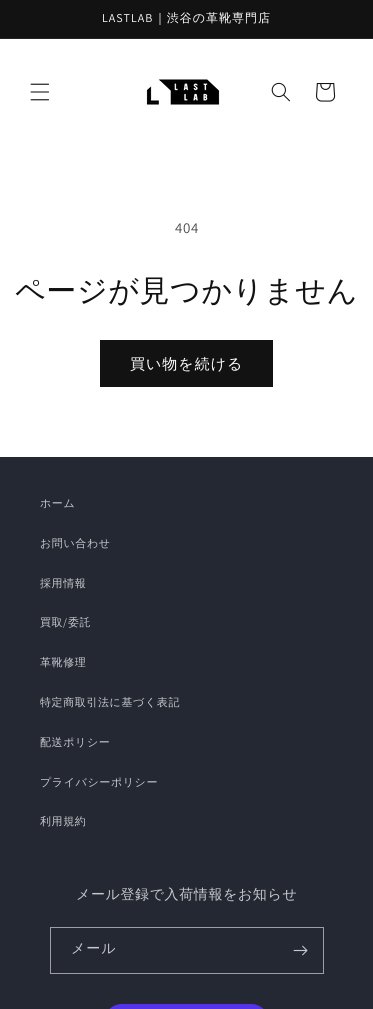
import math
import cairo


def use_color(cr, r, g, b):
  cr.set_source_rgb(r / 255, g / 255, b / 255)

def spaced_text(cr, x, y, s, letter, word):
  cr.move_to(x, y)
  for ch in s:
    cr.show_text(ch)
    cr.rel_move_to(letter + word * (ch == ' '), 0)

def box(cr, x, y, w, h, *color):
  use_color(cr, *color)
  cr.rectangle(x, y, w, h)
  cr.fill()

def round_rect(cr, x, y, w, h, r):
  cr.new_sub_path()
  for i, (u, v) in enumerate([(x + w - r, y + h - r), (x + r, y + h - r), (x + r, y + r), (x + w - r, y + r)]):
    cr.arc(u, v, r, i * math.pi / 2, (i + 1) * math.pi / 2)
  cr.close_path()

def picture(cr, path, x, y, w, h):
  cr.save()
  cr.set_source_surface(cairo.ImageSurface.create_from_png(path), x, y)
  cr.rectangle(x, y, w, h)
  cr.fill()
  cr.restore()

def draw(cr):
  use_color(cr, 255, 255, 255)
  cr.paint()
  box(cr, 0, 0, 373, 38, 18, 18, 18)
  box(cr, 0, 38, 373, 1, 37, 37, 37)
  picture(cr, "img_01.png", 30, 83, 20, 18)
  picture(cr, "img_02.png", 146, 79, 74, 26)
  picture(cr, "img_03.png", 271, 82, 19, 20)
  picture(cr, "img_04.png", 316, 83, 20, 19)
  box(cr, 100, 340, 173, 47, 18, 18, 18)
  box(cr, 0, 457, 373, 552, 36, 40, 51)
  cr.rectangle(50.5, 927.5, 273, 46)
  use_color(cr, 156, 158, 163)
  cr.set_line_width(1)
  cr.stroke()
  picture(cr, "img_05.png", 293, 945, 15, 11)
  use_color(cr, 84, 51, 235)
  round_rect(cr, 104, 1004, 165, 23, 18)
  cr.fill()
  cr.select_font_face("Assistant")
  cr.set_font_size(12)
  use_color(cr, 255, 255, 255)
  spaced_text(cr, 102, 22, "LASTLAB", 1, 0)
  cr.select_font_face("WenQuanYi Zen Hei Medium")
  spaced_text(cr, 154, 22, "｜渋谷の革靴専門店", 1, 0)
  cr.select_font_face("Assistant")
  cr.set_font_size(15)
  use_color(cr, 77, 77, 77)
  spaced_text(cr, 175, 233, "404", 0.6, 0)
  cr.select_font_face("WenQuanYi Zen Hei Medium")
  cr.set_font_size(30)
  use_color(cr, 18, 18, 18)
  spaced_text(cr, 15, 301, "ページが見つかりません", 0.6, 0)
  cr.set_font_size(15)
  use_color(cr, 255, 255, 255)
  spaced_text(cr, 130, 369, "買い物を続ける", 1, 0)
  cr.set_font_size(11)
  use_color(cr, 200, 201, 204)
  spaced_text(cr, 40, 507, "ホーム", 0.6, 0)
  spaced_text(cr, 40, 547, "お問い合わせ", 0.6, 0)
  spaced_text(cr, 40, 587, "採用情報", 0.6, 0)
  spaced_text(cr, 40, 626, "買取", 0.6, 0)
  cr.select_font_face("Assistant")
  spaced_text(cr, 63, 626, "/", 0.6, 0)
  cr.select_font_face("WenQuanYi Zen Hei Medium")
  spaced_text(cr, 68, 626, "委託", 0.6, 0)
  spaced_text(cr, 40, 666, "革靴修理", 0.6, 0)
  spaced_text(cr, 40, 706, "特定商取引法に基づく表記", 0.6, 0)
  spaced_text(cr, 40, 746, "配送ポリシー", 0.6, 0)
  spaced_text(cr, 40, 786, "プライバシーポリシー", 0.6, 0)
  spaced_text(cr, 40, 825, "利用規約", 0.6, 0)
  cr.set_font_size(14)
  spaced_text(cr, 76, 899, "メール登録で入荷情報をお知らせ", 0.6, 0)
  spaced_text(cr, 71, 953, "メール", 1, 0)


surface = cairo.ImageSurface(cairo.FORMAT_RGB24, 373, 1009)
cr = cairo.Context(surface)
options = cairo.FontOptions()
options.set_hint_metrics(cairo.HINT_METRICS_OFF)
options.set_hint_style(cairo.HINT_STYLE_NONE)
cr.set_font_options(options)
cr.set_miter_limit(4)
draw(cr)
surface.write_to_png("out.png")
